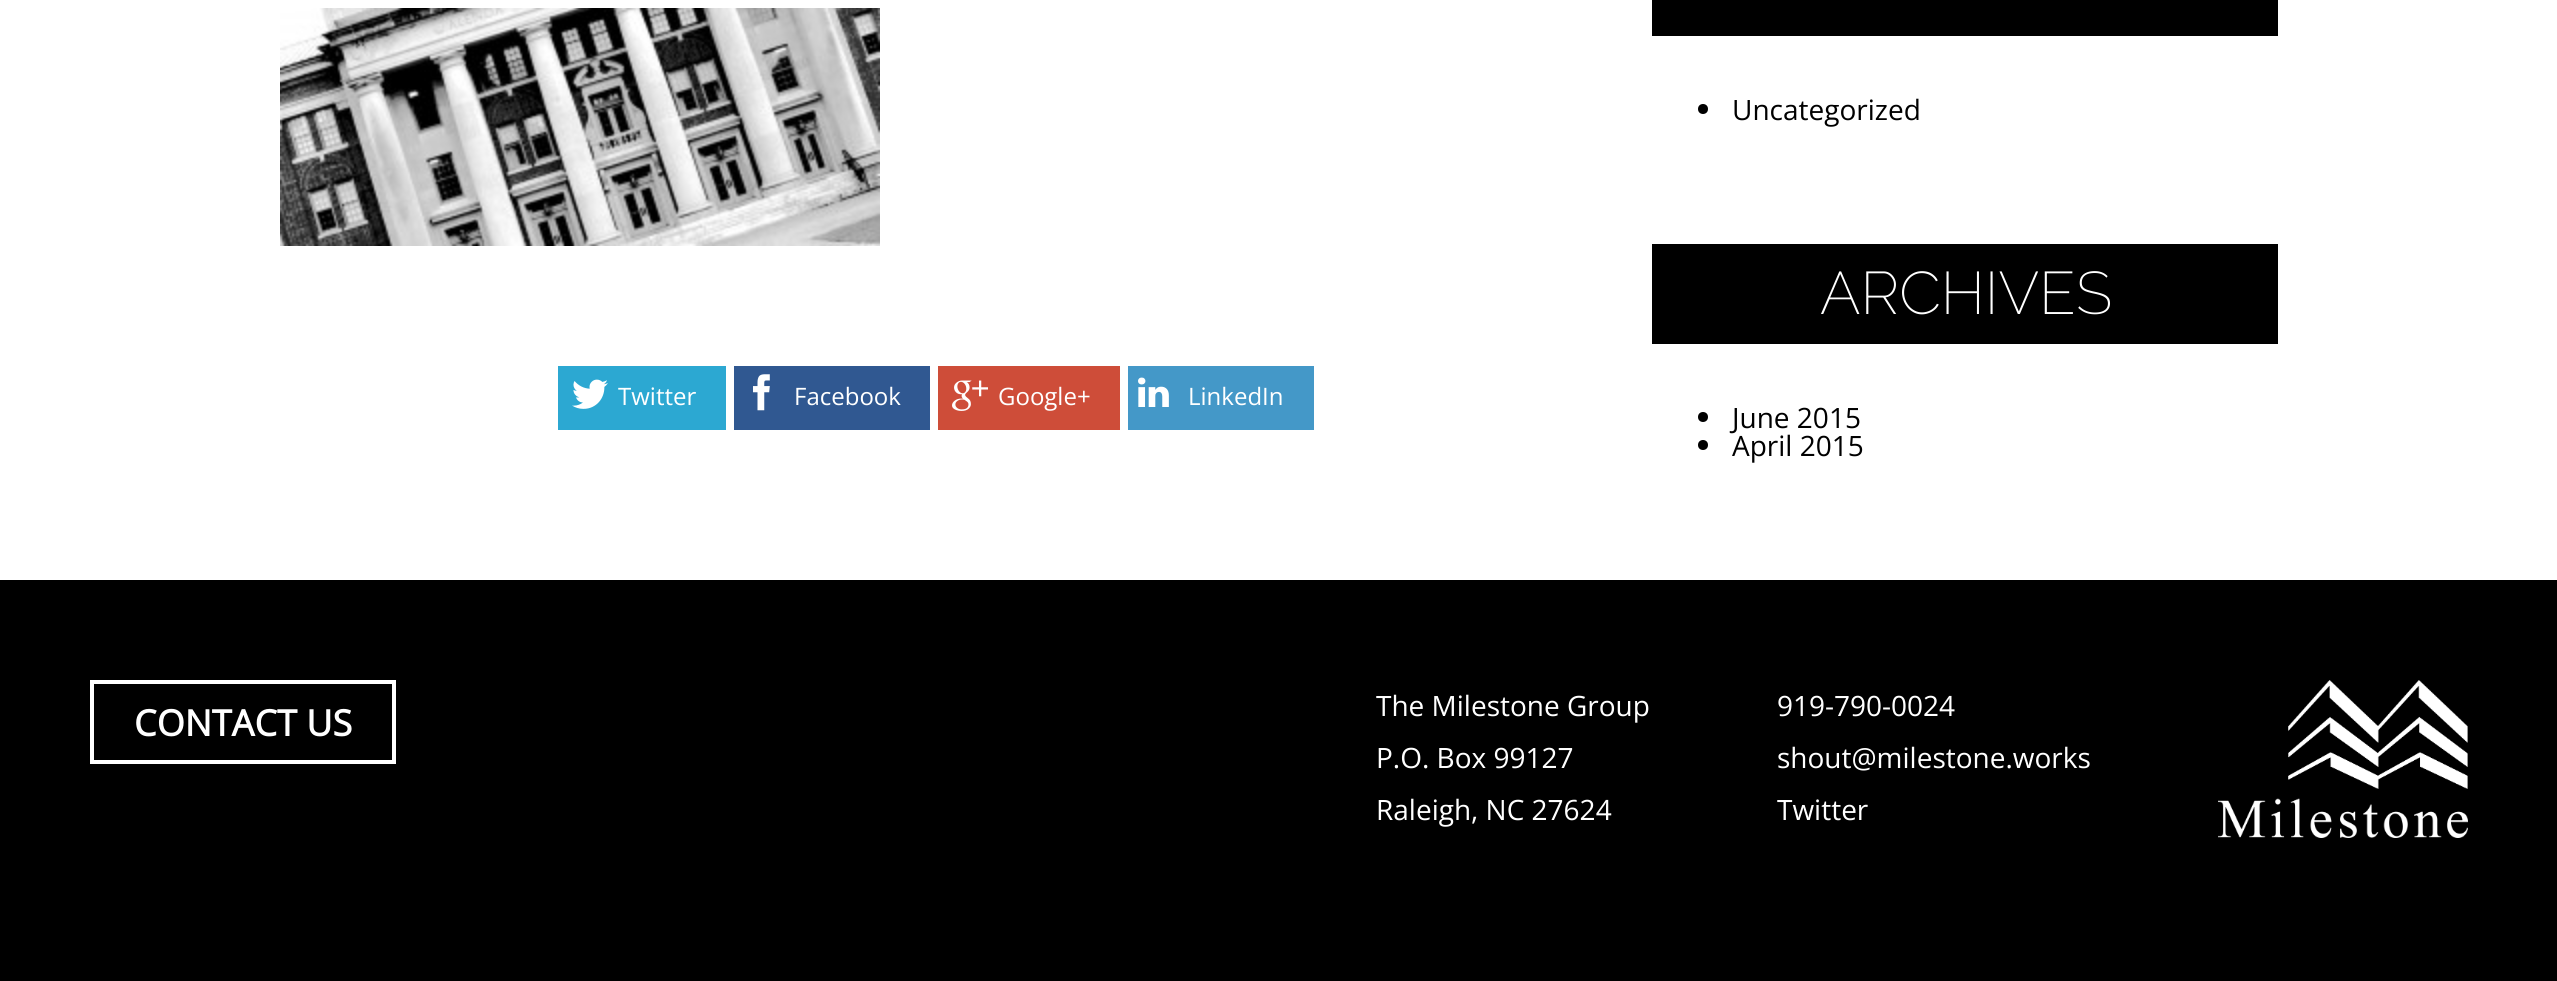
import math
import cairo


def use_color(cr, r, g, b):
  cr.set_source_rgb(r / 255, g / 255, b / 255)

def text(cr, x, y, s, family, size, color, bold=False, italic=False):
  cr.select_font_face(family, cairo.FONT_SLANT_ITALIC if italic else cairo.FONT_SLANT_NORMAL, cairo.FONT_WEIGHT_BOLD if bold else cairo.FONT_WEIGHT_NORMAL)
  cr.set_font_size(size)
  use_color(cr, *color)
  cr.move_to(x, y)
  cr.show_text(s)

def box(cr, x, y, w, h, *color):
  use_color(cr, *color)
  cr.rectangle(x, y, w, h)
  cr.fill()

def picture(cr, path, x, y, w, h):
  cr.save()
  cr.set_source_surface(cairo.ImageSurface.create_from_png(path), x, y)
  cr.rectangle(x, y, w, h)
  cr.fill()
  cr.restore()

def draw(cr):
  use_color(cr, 255, 255, 255)
  cr.paint()
  picture(cr, "img_01.png", 280, 8, 600, 238)
  box(cr, 558, 366, 168, 64, 44, 168, 210)
  picture(cr, "img_02.png", 572, 379, 36, 30)
  box(cr, 734, 366, 196, 64, 48, 88, 145)
  picture(cr, "img_03.png", 753, 374, 17, 37)
  box(cr, 938, 366, 182, 64, 206, 77, 57)
  picture(cr, "img_04.png", 952, 380, 36, 31)
  box(cr, 1128, 366, 186, 64, 68, 152, 200)
  picture(cr, "img_05.png", 1138, 377, 31, 30)
  box(cr, 1652, 0, 626, 36, 0, 0, 0)
  cr.arc(1703, 109, 5, 0, 2 * math.pi)
  cr.fill()
  box(cr, 1652, 244, 626, 100, 0, 0, 0)
  cr.arc(1703, 417, 5, 0, 2 * math.pi)
  cr.fill()
  cr.arc(1703, 445, 5, 0, 2 * math.pi)
  cr.fill()
  box(cr, 0, 580, 2557, 401, 0, 0, 0)
  cr.rectangle(92, 682, 302, 80)
  use_color(cr, 255, 255, 255)
  cr.set_line_width(4)
  cr.stroke()
  picture(cr, "img_06.png", 2218, 680, 250, 158)
  text(cr, 618, 405, "Twitter", "Open Sans", 24, (255, 255, 255))
  text(cr, 794, 405, "Facebook", "Open Sans", 24, (255, 255, 255))
  text(cr, 998, 405, "Google+", "Open Sans", 24, (255, 255, 255))
  text(cr, 1188, 405, "LinkedIn", "Open Sans", 24, (255, 255, 255))
  text(cr, 1732, 120, "Uncategorized", "Open Sans", 28, (0, 0, 0))
  text(cr, 1820, 314, "ARCHIVES", "Raleway ExtraLight", 60, (255, 255, 255))
  text(cr, 1732, 428, "June 2015", "Open Sans", 28, (0, 0, 0))
  text(cr, 1732, 456, "April 2015", "Open Sans", 28, (0, 0, 0))
  text(cr, 134, 736, "CONTACT US", "Open Sans", 36, (255, 255, 255), bold=True)
  text(cr, 1376, 716, "The Milestone Group", "Open Sans", 28, (255, 255, 255))
  text(cr, 1376, 768, "P.O. Box 99127", "Open Sans", 28, (255, 255, 255))
  text(cr, 1376, 820, "Raleigh, NC 27624", "Open Sans", 28, (255, 255, 255))
  text(cr, 1777, 716, "919-790-0024", "Open Sans", 28, (255, 255, 255))
  text(cr, 1777, 768, "shout@milestone.works", "Open Sans", 28, (255, 255, 255))
  text(cr, 1777, 820, "Twitter", "Open Sans", 28, (255, 255, 255))


surface = cairo.ImageSurface(cairo.FORMAT_RGB24, 2557, 981)
cr = cairo.Context(surface)
options = cairo.FontOptions()
options.set_hint_metrics(cairo.HINT_METRICS_OFF)
options.set_hint_style(cairo.HINT_STYLE_NONE)
cr.set_font_options(options)
cr.set_miter_limit(4)
draw(cr)
surface.write_to_png("out.png")
